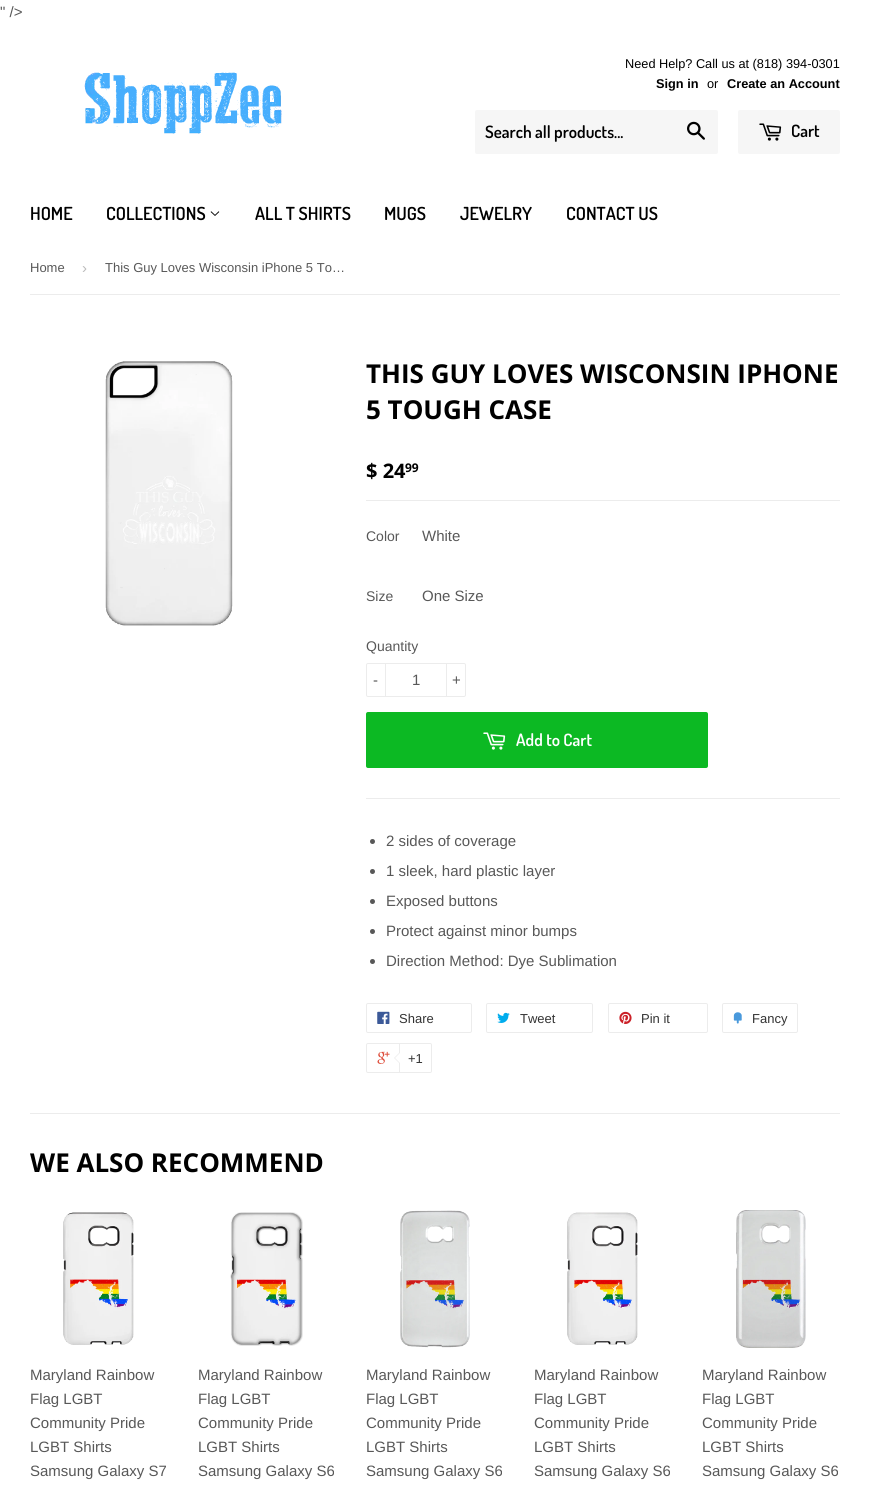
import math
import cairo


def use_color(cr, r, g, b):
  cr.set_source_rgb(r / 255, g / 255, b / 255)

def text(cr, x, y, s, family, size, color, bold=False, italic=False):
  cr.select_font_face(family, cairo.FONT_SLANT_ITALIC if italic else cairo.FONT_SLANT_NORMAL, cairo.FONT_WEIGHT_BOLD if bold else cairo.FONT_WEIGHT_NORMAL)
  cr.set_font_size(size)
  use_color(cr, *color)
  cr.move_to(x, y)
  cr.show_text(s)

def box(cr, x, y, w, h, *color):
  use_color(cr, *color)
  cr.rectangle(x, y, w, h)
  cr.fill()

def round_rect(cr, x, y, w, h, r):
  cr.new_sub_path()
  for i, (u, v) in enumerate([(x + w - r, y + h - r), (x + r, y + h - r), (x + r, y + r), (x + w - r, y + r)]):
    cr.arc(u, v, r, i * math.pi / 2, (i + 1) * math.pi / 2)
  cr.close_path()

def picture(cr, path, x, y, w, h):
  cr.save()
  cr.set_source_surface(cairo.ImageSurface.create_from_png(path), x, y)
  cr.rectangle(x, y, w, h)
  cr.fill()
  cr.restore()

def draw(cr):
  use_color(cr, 255, 255, 255)
  cr.paint()
  picture(cr, "img_01.png", 84, 72, 198, 62)
  use_color(cr, 246, 246, 246)
  round_rect(cr, 475, 110, 243, 44, 2)
  cr.fill()
  picture(cr, "img_02.png", 687, 121, 18, 19)
  round_rect(cr, 738, 110, 102, 44, 2)
  cr.fill()
  picture(cr, "img_03.png", 759, 123, 23, 18)
  picture(cr, "img_04.png", 210, 211, 10, 5)
  box(cr, 30, 294, 810, 1, 236, 236, 236)
  picture(cr, "img_05.png", 105, 361, 128, 265)
  box(cr, 366, 500, 474, 1, 236, 236, 236)
  round_rect(cr, 366.5, 663.5, 99, 33, 1.5)
  cr.set_line_width(1)
  cr.stroke()
  box(cr, 385, 663, 1, 34, 236, 236, 236)
  box(cr, 446, 663, 1, 34, 236, 236, 236)
  use_color(cr, 12, 185, 35)
  round_rect(cr, 366, 712, 342, 56, 2)
  cr.fill()
  picture(cr, "img_06.png", 483, 732, 23, 18)
  box(cr, 366, 798, 474, 1, 236, 236, 236)
  use_color(cr, 88, 88, 88)
  cr.arc(372.5, 841.5, 2.5, 0, 2 * math.pi)
  cr.fill()
  cr.arc(372.5, 871.5, 2.5, 0, 2 * math.pi)
  cr.fill()
  cr.arc(372.5, 901.5, 2.5, 0, 2 * math.pi)
  cr.fill()
  cr.arc(372.5, 931.5, 2.5, 0, 2 * math.pi)
  cr.fill()
  cr.arc(372.5, 961.5, 2.5, 0, 2 * math.pi)
  cr.fill()
  round_rect(cr, 366.5, 1003.5, 105, 29, 1.5)
  use_color(cr, 236, 236, 236)
  cr.stroke()
  picture(cr, "img_07.png", 377, 1011, 13, 13)
  round_rect(cr, 486.5, 1003.5, 106, 29, 1.5)
  cr.stroke()
  picture(cr, "img_08.png", 497, 1012, 13, 11)
  round_rect(cr, 608.5, 1003.5, 99, 29, 1.5)
  cr.stroke()
  picture(cr, "img_09.png", 619, 1011, 13, 13)
  round_rect(cr, 722.5, 1003.5, 75, 29, 1.5)
  cr.stroke()
  picture(cr, "img_10.png", 733, 1012, 9, 12)
  round_rect(cr, 366.5, 1043.5, 64, 29, 1.5)
  cr.stroke()
  picture(cr, "img_11.png", 377, 1051, 13, 13)
  use_color(cr, 255, 255, 255)
  cr.new_path()
  cr.move_to(399.5, 1043.5)
  cr.line_to(430, 1043.5)
  cr.curve_to(431, 1043.5, 431.5, 1044, 431.5, 1045)
  cr.line_to(431.5, 1071)
  cr.curve_to(431.5, 1072, 431, 1072.5, 430, 1072.5)
  cr.line_to(399.5, 1072.5)
  cr.close_path()
  cr.fill_preserve()
  use_color(cr, 236, 236, 236)
  cr.stroke()
  cr.new_path()
  cr.move_to(400, 1052)
  cr.line_to(400, 1064)
  cr.line_to(394, 1058)
  cr.close_path()
  cr.fill()
  use_color(cr, 255, 255, 255)
  cr.new_path()
  cr.move_to(401, 1052)
  cr.line_to(401, 1064)
  cr.line_to(395, 1058)
  cr.close_path()
  cr.fill()
  box(cr, 30, 1113, 810, 1, 236, 236, 236)
  picture(cr, "img_12.png", 63, 1212, 71, 133)
  picture(cr, "img_13.png", 230, 1212, 73, 134)
  picture(cr, "img_14.png", 400, 1210, 70, 138)
  picture(cr, "img_15.png", 567, 1212, 71, 133)
  picture(cr, "img_16.png", 736, 1210, 70, 138)
  text(cr, 0, 17, "\" />", "Liberation Sans", 15, (88, 88, 88))
  text(cr, 625, 68, "Need Help? Call us at (818) 394-0301", "Liberation Sans", 12.75, (0, 0, 0))
  text(cr, 656, 88, "Sign in", "Liberation Sans", 12.75, (0, 0, 0), bold=True)
  text(cr, 707, 88, "or", "Liberation Sans", 12.75, (0, 0, 0))
  text(cr, 727, 88, "Create an Account", "Liberation Sans", 12.75, (0, 0, 0), bold=True)
  text(cr, 485, 138, "Search all products...", "Dosis SemiBold", 17, (0, 0, 0))
  text(cr, 791, 137, "Cart", "Dosis SemiBold", 17, (0, 0, 0))
  text(cr, 30, 220, "HOME", "Dosis SemiBold", 18, (0, 0, 0))
  text(cr, 106, 220, "COLLECTIONS", "Dosis SemiBold", 18, (0, 0, 0))
  text(cr, 255, 220, "ALL T SHIRTS", "Dosis SemiBold", 18, (0, 0, 0))
  text(cr, 384, 220, "MUGS", "Dosis SemiBold", 18, (0, 0, 0))
  text(cr, 460, 220, "JEWELRY", "Dosis SemiBold", 18, (0, 0, 0))
  text(cr, 566, 220, "CONTACT US", "Dosis SemiBold", 18, (0, 0, 0))
  text(cr, 30, 272, "Home", "Liberation Sans", 13, (88, 88, 88))
  text(cr, 82, 273, "›", "Liberation Sans", 15, (187, 187, 187))
  text(cr, 105, 272, "This Guy Loves Wisconsin iPhone 5 To…", "Liberation Sans", 13, (88, 88, 88))
  text(cr, 366, 383, "THIS GUY LOVES WISCONSIN IPHONE", "Open Sans", 26, (0, 0, 0), bold=True)
  text(cr, 366, 419, "5 TOUGH CASE", "Open Sans", 26, (0, 0, 0), bold=True)
  text(cr, 366, 478, "$ 24", "Open Sans", 20, (0, 0, 0), bold=True)
  text(cr, 405, 472, "99", "Open Sans", 12, (0, 0, 0), bold=True)
  text(cr, 366, 541, "Color", "Liberation Sans", 14, (88, 88, 88))
  text(cr, 422, 541, "White", "Liberation Sans", 15, (88, 88, 88))
  text(cr, 366, 601, "Size", "Liberation Sans", 14, (88, 88, 88))
  text(cr, 422, 601, "One Size", "Liberation Sans", 15, (88, 88, 88))
  text(cr, 366, 651, "Quantity", "Liberation Sans", 14, (88, 88, 88))
  text(cr, 373, 685, "-", "Liberation Sans", 15, (88, 88, 88))
  text(cr, 412, 685, "1", "Liberation Sans", 15, (88, 88, 88))
  text(cr, 452, 685, "+", "Liberation Sans", 15, (88, 88, 88))
  text(cr, 516, 746, "Add to Cart", "Dosis SemiBold", 17, (255, 255, 255))
  text(cr, 386, 846, "2 sides of coverage", "Liberation Sans", 15, (88, 88, 88))
  text(cr, 386, 876, "1 sleek, hard plastic layer", "Liberation Sans", 15, (88, 88, 88))
  text(cr, 386, 906, "Exposed buttons", "Liberation Sans", 15, (88, 88, 88))
  text(cr, 386, 936, "Protect against minor bumps", "Liberation Sans", 15, (88, 88, 88))
  text(cr, 386, 966, "Direction Method: Dye Sublimation", "Liberation Sans", 15, (88, 88, 88))
  text(cr, 399, 1023, "Share", "Liberation Sans", 13, (51, 51, 51))
  text(cr, 520, 1023, "Tweet", "Liberation Sans", 13, (51, 51, 51))
  text(cr, 641, 1023, "Pin it", "Liberation Sans", 13, (51, 51, 51))
  text(cr, 752, 1023, "Fancy", "Liberation Sans", 13, (51, 51, 51))
  text(cr, 408, 1063, "+1", "Liberation Sans", 13, (51, 51, 51))
  text(cr, 30, 1172, "WE ALSO RECOMMEND", "Open Sans", 26, (0, 0, 0), bold=True)
  text(cr, 30, 1380, "Maryland Rainbow", "Liberation Sans", 15, (88, 88, 88))
  text(cr, 30, 1404, "Flag LGBT", "Liberation Sans", 15, (88, 88, 88))
  text(cr, 30, 1428, "Community Pride", "Liberation Sans", 15, (88, 88, 88))
  text(cr, 30, 1452, "LGBT Shirts", "Liberation Sans", 15, (88, 88, 88))
  text(cr, 30, 1476, "Samsung Galaxy S7", "Liberation Sans", 15, (88, 88, 88))
  text(cr, 198, 1380, "Maryland Rainbow", "Liberation Sans", 15, (88, 88, 88))
  text(cr, 198, 1404, "Flag LGBT", "Liberation Sans", 15, (88, 88, 88))
  text(cr, 198, 1428, "Community Pride", "Liberation Sans", 15, (88, 88, 88))
  text(cr, 198, 1452, "LGBT Shirts", "Liberation Sans", 15, (88, 88, 88))
  text(cr, 198, 1476, "Samsung Galaxy S6", "Liberation Sans", 15, (88, 88, 88))
  text(cr, 366, 1380, "Maryland Rainbow", "Liberation Sans", 15, (88, 88, 88))
  text(cr, 366, 1404, "Flag LGBT", "Liberation Sans", 15, (88, 88, 88))
  text(cr, 366, 1428, "Community Pride", "Liberation Sans", 15, (88, 88, 88))
  text(cr, 366, 1452, "LGBT Shirts", "Liberation Sans", 15, (88, 88, 88))
  text(cr, 366, 1476, "Samsung Galaxy S6", "Liberation Sans", 15, (88, 88, 88))
  text(cr, 534, 1380, "Maryland Rainbow", "Liberation Sans", 15, (88, 88, 88))
  text(cr, 534, 1404, "Flag LGBT", "Liberation Sans", 15, (88, 88, 88))
  text(cr, 534, 1428, "Community Pride", "Liberation Sans", 15, (88, 88, 88))
  text(cr, 534, 1452, "LGBT Shirts", "Liberation Sans", 15, (88, 88, 88))
  text(cr, 534, 1476, "Samsung Galaxy S6", "Liberation Sans", 15, (88, 88, 88))
  text(cr, 702, 1380, "Maryland Rainbow", "Liberation Sans", 15, (88, 88, 88))
  text(cr, 702, 1404, "Flag LGBT", "Liberation Sans", 15, (88, 88, 88))
  text(cr, 702, 1428, "Community Pride", "Liberation Sans", 15, (88, 88, 88))
  text(cr, 702, 1452, "LGBT Shirts", "Liberation Sans", 15, (88, 88, 88))
  text(cr, 702, 1476, "Samsung Galaxy S6", "Liberation Sans", 15, (88, 88, 88))


surface = cairo.ImageSurface(cairo.FORMAT_RGB24, 870, 1490)
cr = cairo.Context(surface)
options = cairo.FontOptions()
options.set_hint_metrics(cairo.HINT_METRICS_OFF)
options.set_hint_style(cairo.HINT_STYLE_NONE)
cr.set_font_options(options)
cr.set_miter_limit(4)
draw(cr)
surface.write_to_png("out.png")
